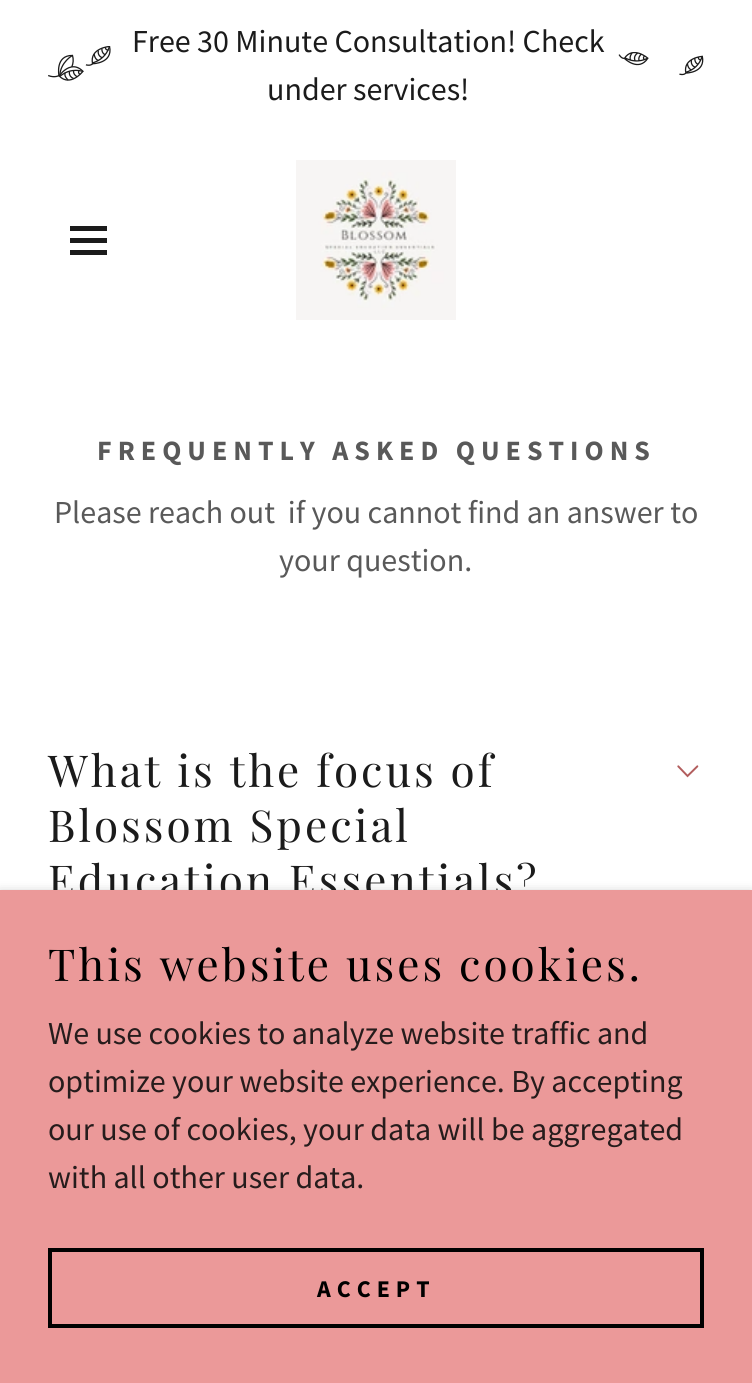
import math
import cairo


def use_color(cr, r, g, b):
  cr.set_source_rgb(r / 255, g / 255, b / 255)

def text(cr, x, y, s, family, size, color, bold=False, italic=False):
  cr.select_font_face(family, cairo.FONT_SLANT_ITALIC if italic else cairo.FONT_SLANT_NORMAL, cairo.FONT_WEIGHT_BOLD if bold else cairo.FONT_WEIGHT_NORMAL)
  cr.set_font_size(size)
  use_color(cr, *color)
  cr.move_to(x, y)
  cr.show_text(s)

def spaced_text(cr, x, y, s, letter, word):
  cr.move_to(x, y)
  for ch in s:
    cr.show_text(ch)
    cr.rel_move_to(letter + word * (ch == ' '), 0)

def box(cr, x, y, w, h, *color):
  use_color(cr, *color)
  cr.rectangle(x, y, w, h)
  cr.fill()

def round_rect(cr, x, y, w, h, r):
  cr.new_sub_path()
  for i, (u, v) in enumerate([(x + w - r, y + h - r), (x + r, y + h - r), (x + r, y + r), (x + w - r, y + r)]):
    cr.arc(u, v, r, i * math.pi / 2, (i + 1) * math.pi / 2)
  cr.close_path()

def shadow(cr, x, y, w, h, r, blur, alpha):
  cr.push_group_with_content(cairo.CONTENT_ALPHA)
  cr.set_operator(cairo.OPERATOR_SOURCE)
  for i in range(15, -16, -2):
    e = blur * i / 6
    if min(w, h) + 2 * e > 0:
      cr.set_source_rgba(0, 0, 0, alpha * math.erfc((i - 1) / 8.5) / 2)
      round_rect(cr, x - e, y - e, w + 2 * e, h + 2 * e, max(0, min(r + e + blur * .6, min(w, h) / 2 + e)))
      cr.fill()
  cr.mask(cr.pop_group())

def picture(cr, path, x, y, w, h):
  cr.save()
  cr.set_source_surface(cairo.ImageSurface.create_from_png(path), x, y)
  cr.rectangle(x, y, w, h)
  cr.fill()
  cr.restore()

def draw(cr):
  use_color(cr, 255, 255, 255)
  cr.paint()
  picture(cr, "img_01.png", 48, 46, 63, 35)
  picture(cr, "img_02.png", 618, 52, 86, 24)
  box(cr, 70, 226, 37, 5, 27, 27, 27)
  box(cr, 70, 238, 37, 5, 27, 27, 27)
  box(cr, 70, 250, 37, 5, 27, 27, 27)
  picture(cr, "img_03.png", 296, 160, 160, 160)
  picture(cr, "img_04.png", 677, 765, 22, 13)
  use_color(cr, 0, 0, 0)
  shadow(cr, 0, 894, 752, 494, 0, 6, 0.3)
  text(cr, 132, 52, "Free 30 Minute Consultation! Check", "Source Sans Pro", 32, (27, 27, 27))
  text(cr, 267, 100, "under services!", "Source Sans Pro", 32, (27, 27, 27))
  cr.select_font_face("Source Sans Pro", cairo.FONT_SLANT_NORMAL, cairo.FONT_WEIGHT_BOLD)
  cr.set_font_size(28)
  use_color(cr, 89, 89, 89)
  spaced_text(cr, 97, 460, "FREQUENTLY ASKED QUESTIONS", 6, 0)
  text(cr, 54, 523, "Please reach out  if you cannot find an answer to", "Source Sans Pro", 32, (89, 89, 89))
  text(cr, 279, 571, "your question.", "Source Sans Pro", 32, (89, 89, 89))
  cr.select_font_face("Playfair Display")
  cr.set_font_size(44)
  use_color(cr, 27, 27, 27)
  spaced_text(cr, 48, 787, "What is the focus of", 3, 0)
  spaced_text(cr, 48, 842, "Blossom Special", 3, 0)
  spaced_text(cr, 48, 897, "Education Essentials?", 3, 0)
  box(cr, 0, 890, 752, 493, 235, 153, 153)
  use_color(cr, 0, 0, 0)
  spaced_text(cr, 48, 981, "This website uses cookies.", 3, 0)
  text(cr, 48, 1044, "We use cookies to analyze website traffic and", "Source Sans Pro", 32, (38, 28, 28))
  text(cr, 48, 1092, "optimize your website experience. By accepting", "Source Sans Pro", 32, (38, 28, 28))
  text(cr, 48, 1140, "our use of cookies, your data will be aggregated", "Source Sans Pro", 32, (38, 28, 28))
  text(cr, 48, 1188, "with all other user data.", "Source Sans Pro", 32, (38, 28, 28))
  cr.rectangle(50, 1250, 652, 76)
  use_color(cr, 0, 0, 0)
  cr.set_line_width(4)
  cr.stroke()
  cr.select_font_face("Source Sans Pro", cairo.FONT_SLANT_NORMAL, cairo.FONT_WEIGHT_BOLD)
  cr.set_font_size(24)
  spaced_text(cr, 317, 1297, "ACCEPT", 6, 0)


surface = cairo.ImageSurface(cairo.FORMAT_RGB24, 752, 1383)
cr = cairo.Context(surface)
options = cairo.FontOptions()
options.set_hint_metrics(cairo.HINT_METRICS_OFF)
options.set_hint_style(cairo.HINT_STYLE_NONE)
cr.set_font_options(options)
cr.set_miter_limit(4)
draw(cr)
surface.write_to_png("out.png")
